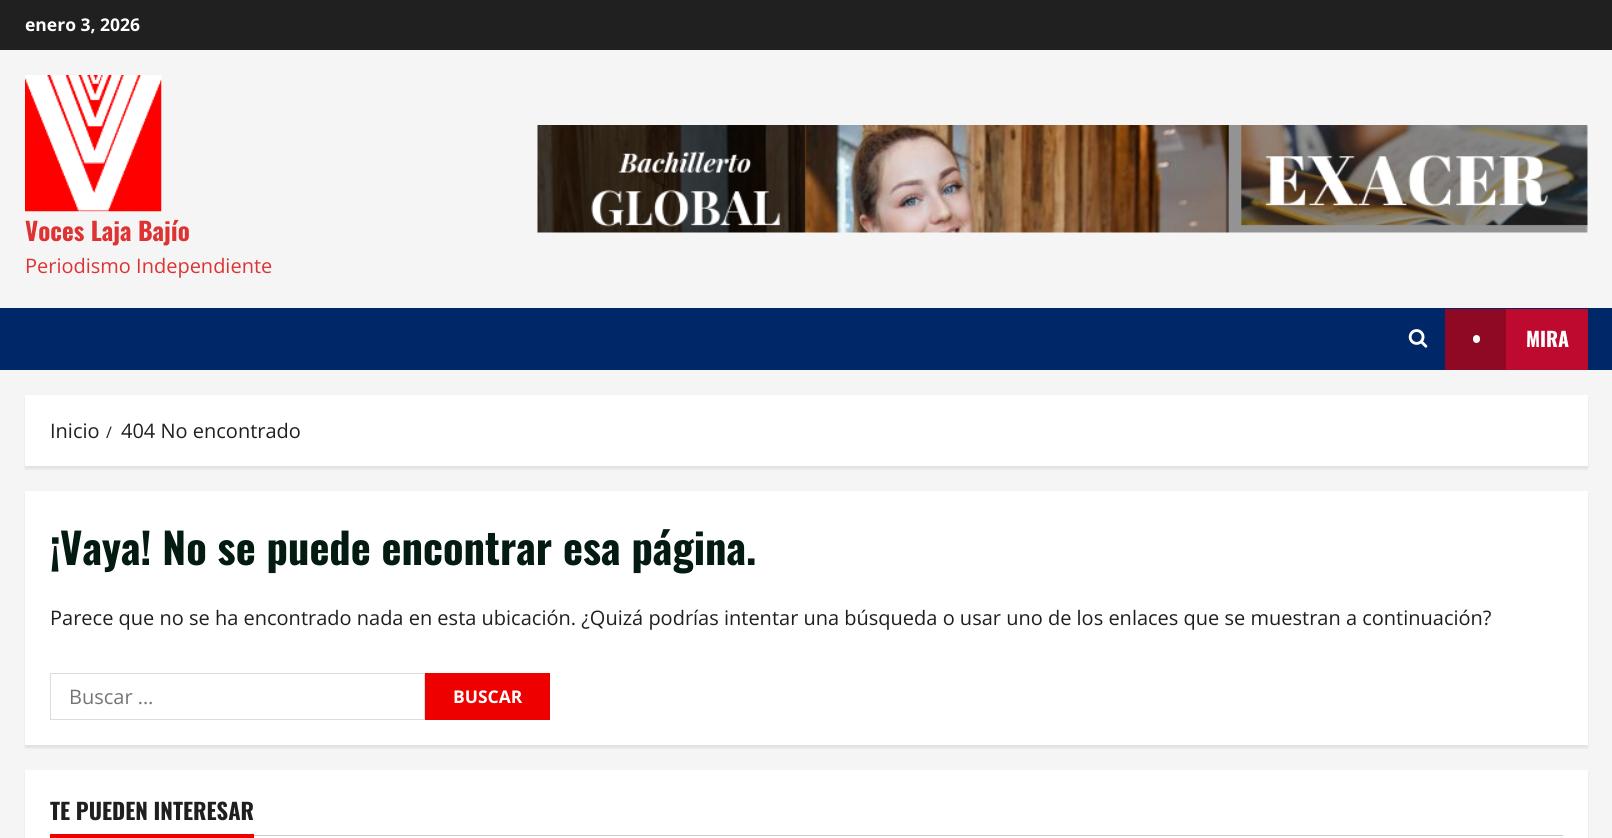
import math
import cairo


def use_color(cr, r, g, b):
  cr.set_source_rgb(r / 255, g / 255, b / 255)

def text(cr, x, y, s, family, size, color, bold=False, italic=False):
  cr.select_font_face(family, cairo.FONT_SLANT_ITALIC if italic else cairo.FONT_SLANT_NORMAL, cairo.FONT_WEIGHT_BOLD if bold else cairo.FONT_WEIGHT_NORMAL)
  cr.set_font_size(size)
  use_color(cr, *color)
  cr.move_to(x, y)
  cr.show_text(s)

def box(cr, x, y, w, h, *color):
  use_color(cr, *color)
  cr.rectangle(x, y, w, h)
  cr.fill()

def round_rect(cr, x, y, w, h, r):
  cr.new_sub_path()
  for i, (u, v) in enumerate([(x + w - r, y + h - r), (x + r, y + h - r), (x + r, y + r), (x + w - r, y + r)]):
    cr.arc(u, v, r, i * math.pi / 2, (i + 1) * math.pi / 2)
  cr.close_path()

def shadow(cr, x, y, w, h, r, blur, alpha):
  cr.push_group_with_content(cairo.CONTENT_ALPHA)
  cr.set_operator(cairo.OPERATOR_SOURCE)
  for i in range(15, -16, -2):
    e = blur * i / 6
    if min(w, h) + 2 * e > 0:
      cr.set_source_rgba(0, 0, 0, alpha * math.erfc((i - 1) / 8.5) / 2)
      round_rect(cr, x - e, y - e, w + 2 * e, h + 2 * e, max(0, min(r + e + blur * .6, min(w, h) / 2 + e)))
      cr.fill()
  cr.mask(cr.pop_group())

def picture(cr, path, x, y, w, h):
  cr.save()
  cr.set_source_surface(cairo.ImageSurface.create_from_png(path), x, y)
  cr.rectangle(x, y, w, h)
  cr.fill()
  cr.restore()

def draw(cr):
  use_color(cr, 245, 245, 245)
  cr.paint()
  box(cr, 0, 0, 1612, 50, 32, 32, 32)
  picture(cr, "img_01.png", 537, 125, 1051, 108)
  picture(cr, "img_02.png", 25, 75, 137, 137)
  box(cr, 0, 308, 1612, 62, 0, 40, 104)
  picture(cr, "img_03.png", 1408, 329, 20, 19)
  box(cr, 1506, 309, 82, 61, 191, 10, 48)
  box(cr, 1445, 309, 61, 61, 143, 8, 36)
  use_color(cr, 255, 255, 255)
  round_rect(cr, 1473, 335, 7, 8, 3.5)
  cr.fill()
  use_color(cr, 0, 0, 0)
  shadow(cr, 25, 398, 1563, 71, 0, 1, 0.08)
  box(cr, 25, 395, 1563, 71, 255, 255, 255)
  use_color(cr, 0, 0, 0)
  shadow(cr, 25, 494, 1563, 254, 0, 1, 0.08)
  box(cr, 25, 491, 1563, 254, 255, 255, 255)
  cr.rectangle(50.5, 673.5, 374, 46)
  use_color(cr, 220, 220, 220)
  cr.set_line_width(1)
  cr.stroke()
  box(cr, 425, 673, 125, 47, 239, 0, 0)
  use_color(cr, 0, 0, 0)
  shadow(cr, 25, 773, 1563, 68, 0, 1, 0.08)
  box(cr, 25, 770, 1563, 68, 255, 255, 255)
  box(cr, 254, 835, 1309, 1, 204, 204, 204)
  box(cr, 50, 834, 204, 4, 239, 0, 0)
  text(cr, 25, 31, "enero 3, 2026", "Open Sans", 17.5, (255, 255, 255), bold=True)
  text(cr, 25, 241, "Voces Laja Bajío", "Oswald", 25, (221, 51, 51), bold=True)
  text(cr, 25, 273, "Periodismo Independiente", "Open Sans", 20, (221, 51, 51))
  text(cr, 1526, 347, "MIRA", "Oswald", 20, (255, 255, 255), bold=True)
  text(cr, 50, 438, "Inicio", "Open Sans", 20, (31, 31, 31))
  text(cr, 106, 438, "/", "Open Sans", 16, (31, 31, 31))
  text(cr, 121, 438, "404 No encontrado", "Open Sans", 20, (31, 31, 31))
  text(cr, 50, 565, "¡Vaya! No se puede encontrar esa página.", "Oswald", 42.5, (3, 27, 17), bold=True)
  text(cr, 50, 625, "Parece que no se ha encontrado nada en esta ubicación. ¿Quizá podrías intentar una búsqueda o usar uno de los enlaces que se muestran a continuación?", "Open Sans", 20, (31, 31, 31))
  text(cr, 69, 704, "Buscar …", "Open Sans", 20, (117, 117, 117))
  text(cr, 453, 703, "BUSCAR", "Open Sans", 17.5, (255, 255, 255), bold=True)
  text(cr, 50, 820, "TE PUEDEN INTERESAR", "Oswald", 22.5, (31, 31, 31), bold=True)


surface = cairo.ImageSurface(cairo.FORMAT_RGB24, 1612, 838)
cr = cairo.Context(surface)
options = cairo.FontOptions()
options.set_hint_metrics(cairo.HINT_METRICS_OFF)
options.set_hint_style(cairo.HINT_STYLE_NONE)
cr.set_font_options(options)
cr.set_miter_limit(4)
draw(cr)
surface.write_to_png("out.png")
